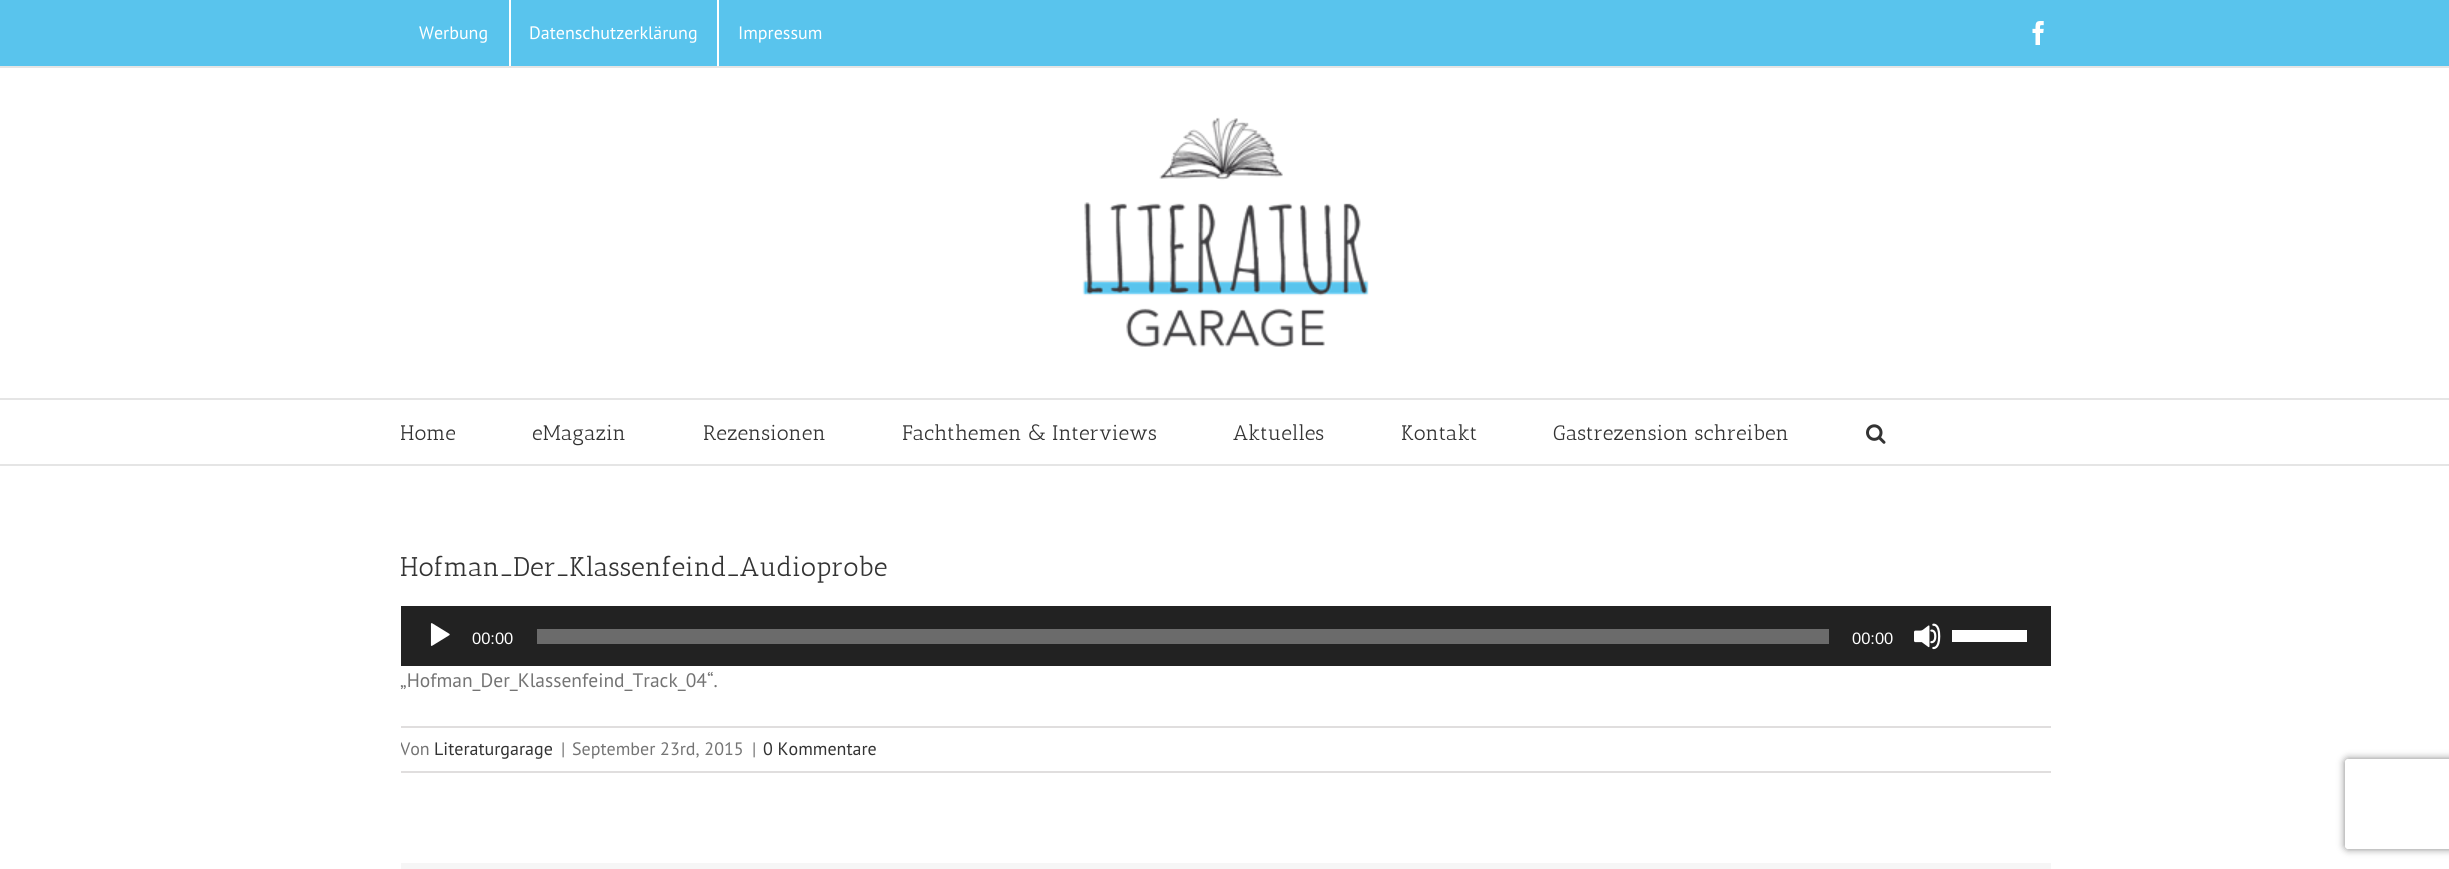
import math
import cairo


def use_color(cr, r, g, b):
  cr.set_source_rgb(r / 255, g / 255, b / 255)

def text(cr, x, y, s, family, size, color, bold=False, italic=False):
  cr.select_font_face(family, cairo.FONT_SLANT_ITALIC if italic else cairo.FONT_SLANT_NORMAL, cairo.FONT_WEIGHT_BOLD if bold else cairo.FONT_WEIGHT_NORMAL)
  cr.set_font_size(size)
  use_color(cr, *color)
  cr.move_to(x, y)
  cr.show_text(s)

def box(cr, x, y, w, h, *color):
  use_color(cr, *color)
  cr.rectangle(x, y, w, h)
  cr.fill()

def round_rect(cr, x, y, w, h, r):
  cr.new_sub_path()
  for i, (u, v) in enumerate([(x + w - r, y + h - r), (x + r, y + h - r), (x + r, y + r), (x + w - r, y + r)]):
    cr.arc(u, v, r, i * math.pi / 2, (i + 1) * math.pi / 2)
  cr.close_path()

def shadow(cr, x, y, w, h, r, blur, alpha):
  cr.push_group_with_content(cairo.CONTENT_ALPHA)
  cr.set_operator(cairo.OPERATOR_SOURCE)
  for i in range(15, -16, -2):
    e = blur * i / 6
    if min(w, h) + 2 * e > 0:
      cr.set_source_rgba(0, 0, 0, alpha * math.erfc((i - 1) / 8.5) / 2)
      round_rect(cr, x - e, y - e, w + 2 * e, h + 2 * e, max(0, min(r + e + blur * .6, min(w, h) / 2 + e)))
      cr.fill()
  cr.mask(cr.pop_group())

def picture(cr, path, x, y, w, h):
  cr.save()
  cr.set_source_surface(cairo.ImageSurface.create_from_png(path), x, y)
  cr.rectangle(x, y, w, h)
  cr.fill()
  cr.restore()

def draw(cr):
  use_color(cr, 255, 255, 255)
  cr.paint()
  box(cr, 0, 0, 2449, 66, 89, 196, 237)
  box(cr, 0, 66, 2449, 2, 229, 229, 229)
  box(cr, 509, 0, 2, 66, 255, 255, 255)
  box(cr, 717, 0, 2, 66, 255, 255, 255)
  picture(cr, "img_01.png", 2032, 21, 12, 24)
  box(cr, 0, 398, 2449, 2, 229, 229, 229)
  picture(cr, "img_02.png", 1082, 117, 287, 230)
  box(cr, 0, 464, 2449, 2, 229, 229, 229)
  picture(cr, "img_03.png", 1866, 424, 20, 20)
  box(cr, 401, 606, 1650, 60, 34, 34, 34)
  picture(cr, "img_04.png", 430, 623, 20, 23)
  box(cr, 537, 629, 1292, 15, 107, 107, 107)
  picture(cr, "img_05.png", 1914, 623, 27, 27)
  box(cr, 1952, 630, 75, 12, 255, 255, 255)
  box(cr, 401, 726, 1650, 2, 224, 222, 222)
  box(cr, 401, 771, 1650, 2, 224, 222, 222)
  box(cr, 401, 863, 1650, 6, 246, 246, 246)
  cr.save()
  cr.set_fill_rule(cairo.FILL_RULE_EVEN_ODD)
  cr.new_path()
  cr.move_to(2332, 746)
  cr.line_to(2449, 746)
  cr.line_to(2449, 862)
  cr.line_to(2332, 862)
  cr.close_path()
  cr.move_to(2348, 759)
  cr.line_to(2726, 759)
  cr.curve_to(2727.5, 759, 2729, 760.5, 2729, 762)
  cr.line_to(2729, 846)
  cr.curve_to(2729, 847.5, 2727.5, 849, 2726, 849)
  cr.line_to(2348, 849)
  cr.curve_to(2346.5, 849, 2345, 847.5, 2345, 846)
  cr.line_to(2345, 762)
  cr.curve_to(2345, 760.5, 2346.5, 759, 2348, 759)
  cr.close_path()
  cr.clip()
  use_color(cr, 128, 128, 128)
  shadow(cr, 2345, 759, 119, 90, 3, 4, 1)
  cr.restore()
  text(cr, 419, 39, "Werbung", "PT Sans", 18, (255, 255, 255))
  text(cr, 529, 39, "Datenschutzerklärung", "PT Sans", 18, (255, 255, 255))
  text(cr, 738, 39, "Impressum", "PT Sans", 18, (255, 255, 255))
  cr.save()
  cr.rectangle(401, 399, 1650, 65)
  cr.clip()
  text(cr, 400, 440, "Home", "Antic Slab", 21, (51, 51, 51))
  cr.restore()
  text(cr, 532, 440, "eMagazin", "Antic Slab", 21, (51, 51, 51))
  text(cr, 703, 440, "Rezensionen", "Antic Slab", 21, (51, 51, 51))
  text(cr, 902, 440, "Fachthemen & Interviews", "Antic Slab", 21, (51, 51, 51))
  text(cr, 1233, 440, "Aktuelles", "Antic Slab", 21, (51, 51, 51))
  text(cr, 1401, 440, "Kontakt", "Antic Slab", 21, (51, 51, 51))
  text(cr, 1553, 440, "Gastrezension schreiben", "Antic Slab", 21, (51, 51, 51))
  text(cr, 400, 576, "Hofman_Der_Klassenfeind_Audioprobe", "Antic Slab", 27, (51, 51, 51))
  text(cr, 472, 644, "00:00", "Liberation Sans", 16.5, (255, 255, 255))
  text(cr, 1852, 644, "00:00", "Liberation Sans", 16.5, (255, 255, 255))
  text(cr, 400, 687, "„Hofman_Der_Klassenfeind_Track_04“.", "PT Sans", 19.5, (116, 116, 116))
  cr.save()
  cr.rectangle(401, 728, 1650, 43)
  cr.clip()
  text(cr, 400, 755, "Von", "PT Sans", 18, (116, 116, 116))
  cr.restore()
  text(cr, 434, 755, "Literaturgarage", "PT Sans", 18, (51, 51, 51))
  text(cr, 561, 755, "|", "PT Sans", 18, (116, 116, 116))
  text(cr, 572, 755, "September 23rd, 2015", "PT Sans", 18, (116, 116, 116))
  text(cr, 752, 755, "|", "PT Sans", 18, (116, 116, 116))
  text(cr, 763, 755, "0 Kommentare", "PT Sans", 18, (51, 51, 51))


surface = cairo.ImageSurface(cairo.FORMAT_RGB24, 2449, 869)
cr = cairo.Context(surface)
options = cairo.FontOptions()
options.set_hint_metrics(cairo.HINT_METRICS_OFF)
options.set_hint_style(cairo.HINT_STYLE_NONE)
cr.set_font_options(options)
cr.set_miter_limit(4)
draw(cr)
surface.write_to_png("out.png")
